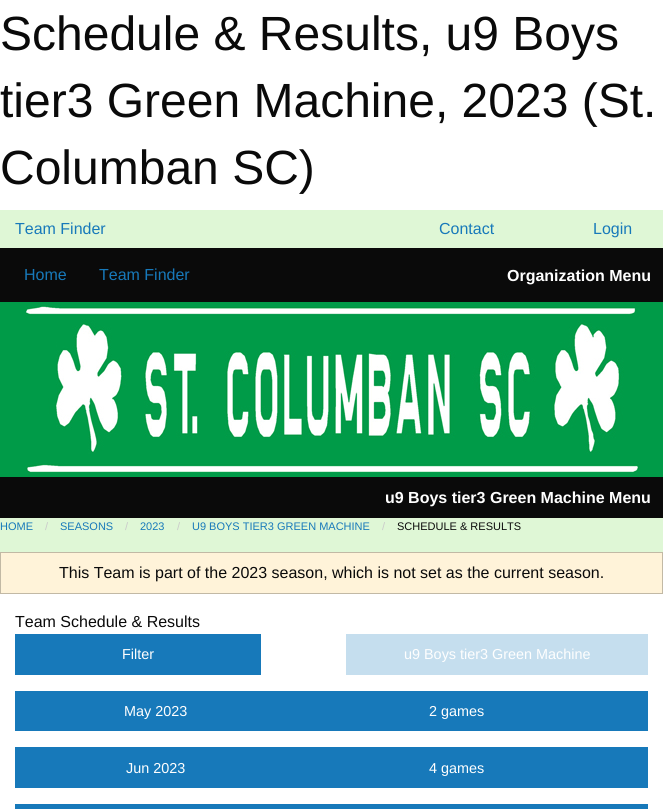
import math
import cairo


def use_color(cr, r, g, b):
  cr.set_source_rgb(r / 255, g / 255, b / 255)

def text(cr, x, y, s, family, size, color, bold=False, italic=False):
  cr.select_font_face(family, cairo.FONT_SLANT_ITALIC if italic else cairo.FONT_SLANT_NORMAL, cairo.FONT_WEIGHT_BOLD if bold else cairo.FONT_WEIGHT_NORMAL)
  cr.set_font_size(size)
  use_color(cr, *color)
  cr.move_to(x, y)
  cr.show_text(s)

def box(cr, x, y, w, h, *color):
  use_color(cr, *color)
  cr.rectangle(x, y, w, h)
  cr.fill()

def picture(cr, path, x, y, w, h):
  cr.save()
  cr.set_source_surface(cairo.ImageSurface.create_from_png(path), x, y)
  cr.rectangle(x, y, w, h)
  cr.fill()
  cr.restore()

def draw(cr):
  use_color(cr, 255, 255, 255)
  cr.paint()
  box(cr, 0, 210, 663, 342, 223, 247, 214)
  box(cr, 0, 248, 663, 54, 10, 10, 10)
  box(cr, 0, 302, 663, 175, 0, 155, 72)
  picture(cr, "img_01.png", 25, 305, 615, 168)
  box(cr, 0, 477, 663, 41, 10, 10, 10)
  use_color(cr, 255, 243, 217)
  cr.rectangle(0.5, 552.5, 662, 41)
  cr.fill_preserve()
  use_color(cr, 194, 185, 165)
  cr.set_line_width(1)
  cr.stroke()
  box(cr, 15, 634, 246, 41, 23, 121, 186)
  box(cr, 346, 634, 302, 41, 197, 222, 238)
  box(cr, 15, 691, 633, 40, 23, 121, 186)
  box(cr, 15, 747, 633, 41, 23, 121, 186)
  box(cr, 15, 804, 633, 5, 23, 121, 186)
  text(cr, 0, 50, "Schedule & Results, u9 Boys", "Liberation Sans", 48, (10, 10, 10))
  text(cr, 0, 117, "tier3 Green Machine, 2023 (St.", "Liberation Sans", 48, (10, 10, 10))
  text(cr, 0, 184, "Columban SC)", "Liberation Sans", 48, (10, 10, 10))
  text(cr, 15, 234, "Team Finder", "Liberation Sans", 16, (23, 121, 186))
  text(cr, 439, 234, "Contact", "Liberation Sans", 16, (23, 121, 186))
  text(cr, 593, 234, "Login", "Liberation Sans", 16, (23, 121, 186))
  text(cr, 24, 280, "Home", "Liberation Sans", 16, (23, 121, 186))
  text(cr, 99, 280, "Team Finder", "Liberation Sans", 16, (23, 121, 186))
  text(cr, 507, 281, "Organization Menu", "Liberation Sans", 16, (254, 254, 254), bold=True)
  text(cr, 385, 503, "u9 Boys tier3 Green Machine Menu", "Liberation Sans", 16, (254, 254, 254), bold=True)
  text(cr, 0, 530, "HOME", "Liberation Sans", 11, (23, 121, 186))
  text(cr, 45, 530, "/", "Liberation Sans", 11, (202, 202, 202))
  text(cr, 60, 530, "SEASONS", "Liberation Sans", 11, (23, 121, 186))
  text(cr, 125, 530, "/", "Liberation Sans", 11, (202, 202, 202))
  text(cr, 140, 530, "2023", "Liberation Sans", 11, (23, 121, 186))
  text(cr, 177, 530, "/", "Liberation Sans", 11, (202, 202, 202))
  text(cr, 192, 530, "U9 BOYS TIER3 GREEN MACHINE", "Liberation Sans", 11, (23, 121, 186))
  text(cr, 382, 530, "/", "Liberation Sans", 11, (202, 202, 202))
  text(cr, 397, 530, "SCHEDULE & RESULTS", "Liberation Sans", 11, (10, 10, 10))
  text(cr, 59, 578, "This Team is part of the 2023 season, which is not set as the current season.", "Liberation Sans", 16, (10, 10, 10))
  text(cr, 15, 627, "Team Schedule & Results", "Liberation Sans", 16, (10, 10, 10))
  text(cr, 122, 659, "Filter", "Liberation Sans", 14.4, (254, 254, 254))
  text(cr, 404, 659, "u9 Boys tier3 Green Machine", "Liberation Sans", 14.4, (254, 254, 254))
  text(cr, 124, 716, "May 2023", "Liberation Sans", 14.4, (254, 254, 254))
  text(cr, 429, 716, "2 games", "Liberation Sans", 14.4, (254, 254, 254))
  text(cr, 126, 773, "Jun 2023", "Liberation Sans", 14.4, (254, 254, 254))
  text(cr, 429, 773, "4 games", "Liberation Sans", 14.4, (254, 254, 254))


surface = cairo.ImageSurface(cairo.FORMAT_RGB24, 663, 809)
cr = cairo.Context(surface)
options = cairo.FontOptions()
options.set_hint_metrics(cairo.HINT_METRICS_OFF)
options.set_hint_style(cairo.HINT_STYLE_NONE)
cr.set_font_options(options)
cr.set_miter_limit(4)
draw(cr)
surface.write_to_png("out.png")
